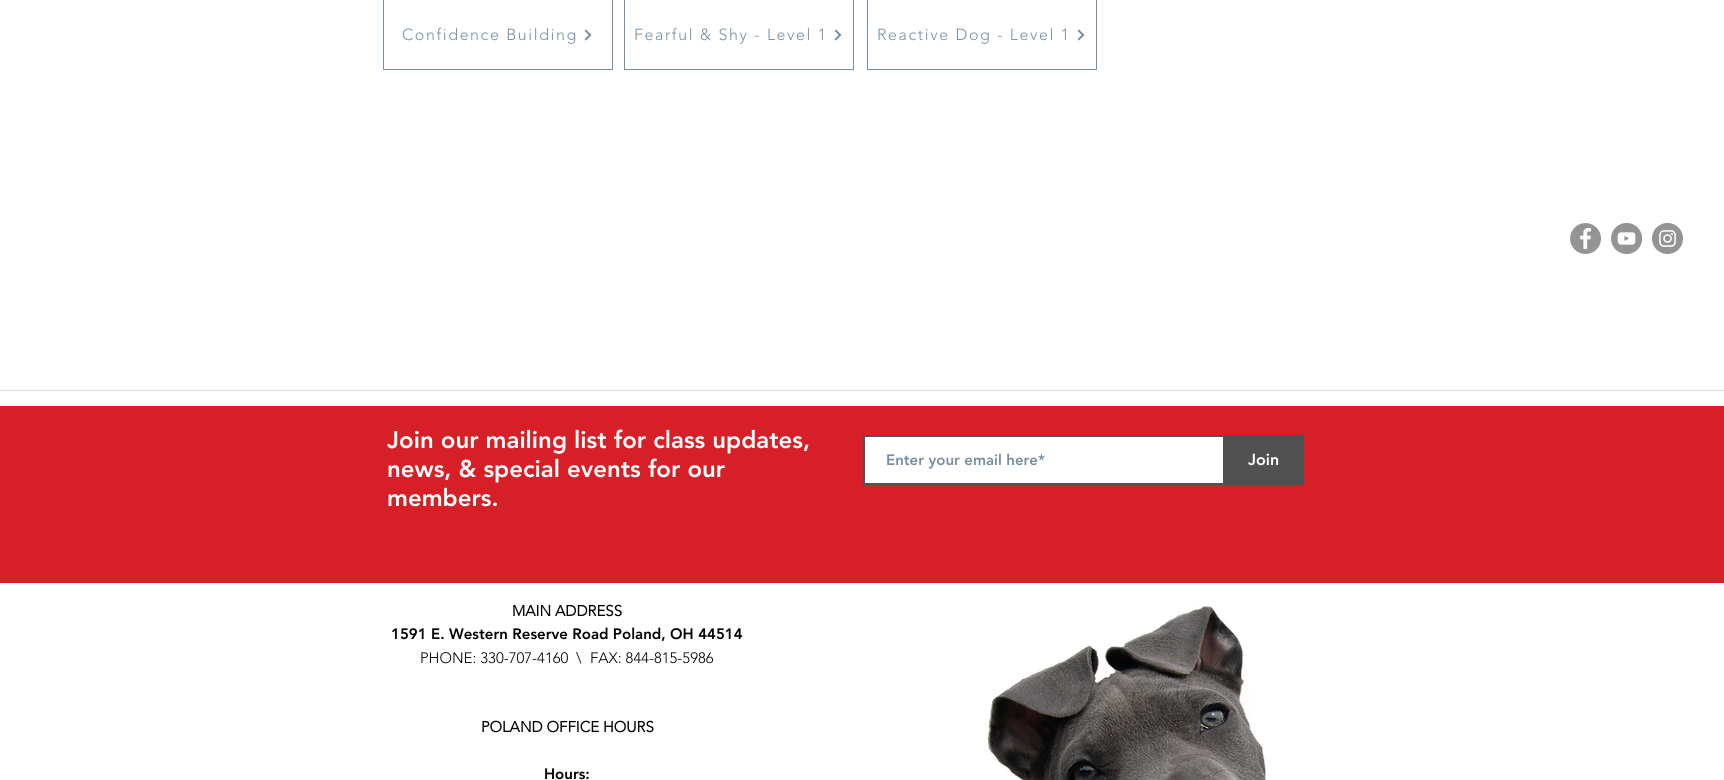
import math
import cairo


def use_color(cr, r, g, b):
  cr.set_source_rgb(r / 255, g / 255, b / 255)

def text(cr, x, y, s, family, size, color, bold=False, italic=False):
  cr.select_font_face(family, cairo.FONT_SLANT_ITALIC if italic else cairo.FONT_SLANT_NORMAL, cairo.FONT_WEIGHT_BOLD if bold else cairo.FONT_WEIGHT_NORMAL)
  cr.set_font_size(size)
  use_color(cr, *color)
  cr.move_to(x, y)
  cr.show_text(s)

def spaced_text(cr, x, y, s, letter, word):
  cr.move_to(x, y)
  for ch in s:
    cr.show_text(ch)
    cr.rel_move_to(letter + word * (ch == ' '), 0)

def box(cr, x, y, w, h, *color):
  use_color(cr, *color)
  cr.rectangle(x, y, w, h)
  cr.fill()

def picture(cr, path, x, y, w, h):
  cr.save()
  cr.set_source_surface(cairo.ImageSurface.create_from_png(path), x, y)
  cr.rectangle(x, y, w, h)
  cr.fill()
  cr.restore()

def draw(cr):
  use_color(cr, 255, 255, 255)
  cr.paint()
  cr.rectangle(383.5, -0.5, 229, 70)
  use_color(cr, 120, 141, 163)
  cr.set_line_width(1)
  cr.stroke()
  picture(cr, "img_01.png", 584, 29, 8, 12)
  cr.rectangle(624.5, -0.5, 229, 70)
  cr.stroke()
  picture(cr, "img_01.png", 834, 29, 8, 12)
  cr.rectangle(867.5, -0.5, 229, 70)
  cr.stroke()
  picture(cr, "img_01.png", 1077, 29, 8, 12)
  picture(cr, "img_02.png", 1570, 223, 31, 31)
  picture(cr, "img_03.png", 1611, 223, 31, 31)
  picture(cr, "img_04.png", 1652, 223, 31, 31)
  box(cr, 0, 390, 1724, 1, 217, 217, 217)
  box(cr, 0, 406, 1724, 177, 214, 31, 38)
  use_color(cr, 255, 255, 255)
  cr.rectangle(864, 436, 360, 48)
  cr.fill_preserve()
  use_color(cr, 81, 81, 81)
  cr.set_line_width(2)
  cr.stroke()
  box(cr, 1225, 435, 79, 50, 81, 81, 81)
  picture(cr, "img_05.png", 987, 606, 279, 174)
  cr.select_font_face("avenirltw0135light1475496 Light")
  cr.set_font_size(16)
  use_color(cr, 120, 141, 163)
  spaced_text(cr, 402, 40, "Confidence Building", 1.6, 0)
  spaced_text(cr, 634, 40, "Fearful & Shy - Level 1", 1.6, 0)
  spaced_text(cr, 877, 40, "Reactive Dog - Level 1", 1.6, 0)
  text(cr, 387, 448, "Join our mailing list for class updates,", "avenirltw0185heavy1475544 Black", 24, (255, 255, 255))
  text(cr, 387, 477, "news, & special events for our", "avenirltw0185heavy1475544 Black", 24, (255, 255, 255))
  text(cr, 387, 506, "members.", "avenirltw0185heavy1475544 Black", 24, (255, 255, 255))
  text(cr, 886, 465, "Enter your email here*", "avenirltw0185heavy1475544 Black", 15, (120, 141, 163))
  text(cr, 1248, 465, "Join", "avenirltw0185heavy1475544 Black", 16, (255, 255, 255))
  text(cr, 512, 616, "MAIN ADDRESS", "avenirltw0135light1475496", 15, (0, 0, 0), bold=True)
  text(cr, 391, 639, "1591 E. Western Reserve Road Poland, OH 44514", "avenirltw0185heavy1475544 Black", 15, (0, 0, 0))
  text(cr, 420, 663, "PHONE: 330-707-4160  \\", "avenirltw0135light1475496 Light", 15, (0, 0, 0))
  text(cr, 590, 663, "FAX: 844-815-5986", "avenirltw0135light1475496 Light", 15, (0, 0, 0))
  text(cr, 481, 732, "POLAND OFFICE HOURS", "avenirltw0135light1475496", 15, (0, 0, 0), bold=True)
  text(cr, 544, 779, "Hours:", "avenirltw0185heavy1475544 Black", 15, (0, 0, 0))


surface = cairo.ImageSurface(cairo.FORMAT_RGB24, 1724, 780)
cr = cairo.Context(surface)
options = cairo.FontOptions()
options.set_hint_metrics(cairo.HINT_METRICS_OFF)
options.set_hint_style(cairo.HINT_STYLE_NONE)
cr.set_font_options(options)
cr.set_miter_limit(4)
draw(cr)
surface.write_to_png("out.png")
